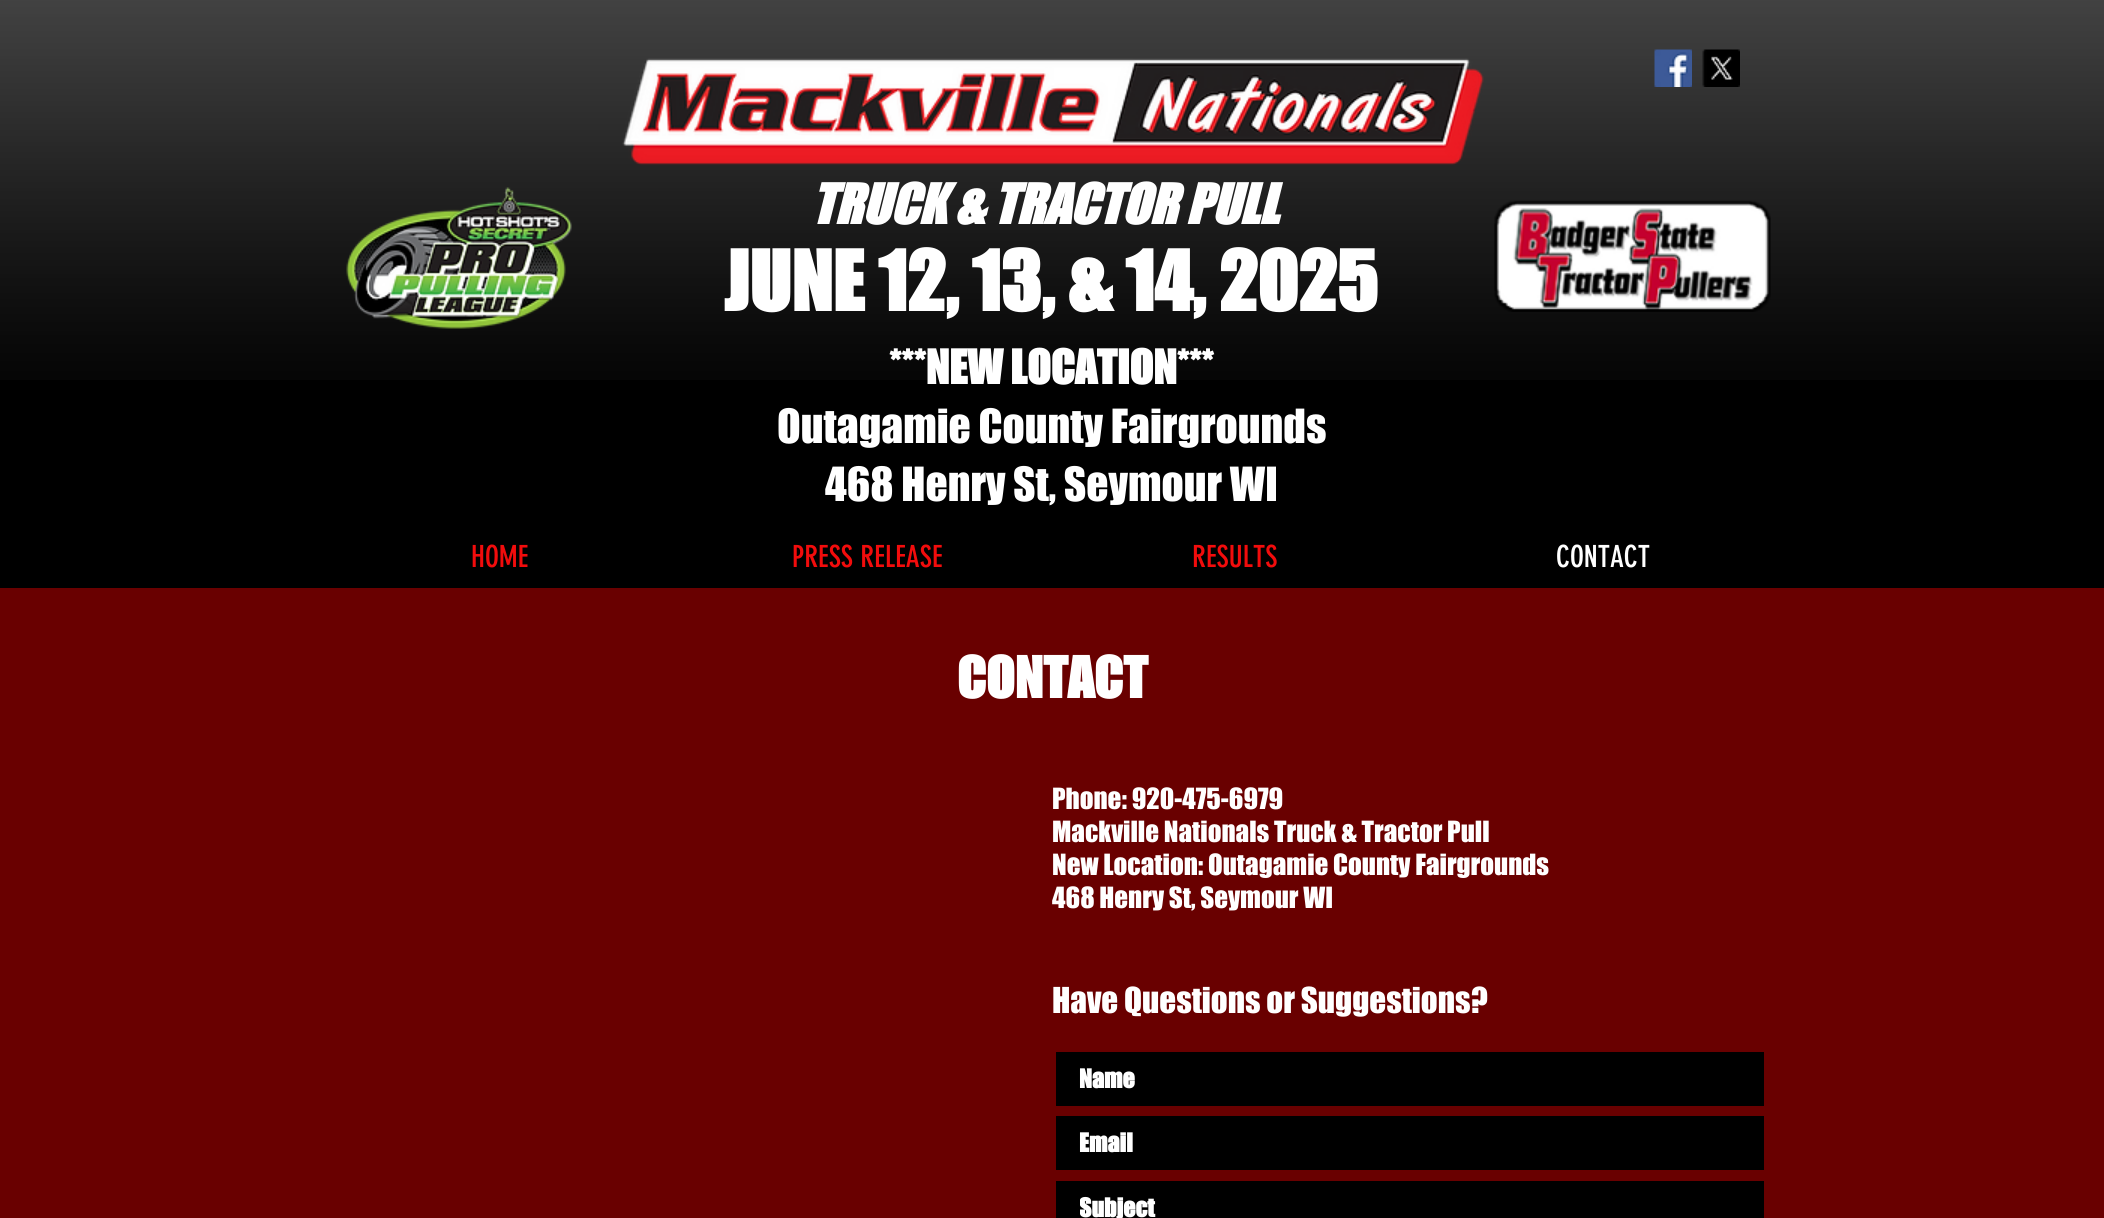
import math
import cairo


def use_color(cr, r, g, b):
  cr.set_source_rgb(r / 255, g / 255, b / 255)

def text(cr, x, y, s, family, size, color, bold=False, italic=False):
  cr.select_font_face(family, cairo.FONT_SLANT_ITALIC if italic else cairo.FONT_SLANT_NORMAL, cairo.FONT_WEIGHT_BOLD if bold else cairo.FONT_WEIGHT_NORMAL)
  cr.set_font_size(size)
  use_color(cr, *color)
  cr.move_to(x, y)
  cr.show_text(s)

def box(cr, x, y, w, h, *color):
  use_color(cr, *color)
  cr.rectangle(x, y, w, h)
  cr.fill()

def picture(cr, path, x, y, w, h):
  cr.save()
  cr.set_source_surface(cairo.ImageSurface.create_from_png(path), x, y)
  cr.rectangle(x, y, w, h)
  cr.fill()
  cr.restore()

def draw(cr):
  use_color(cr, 105, 0, 0)
  cr.paint()
  box(cr, 0, 0, 2104, 588, 0, 0, 0)
  picture(cr, "img_01.png", 0, 0, 2104, 380)
  picture(cr, "img_02.png", 1654, 49, 38, 38)
  picture(cr, "img_03.png", 1702, 49, 38, 38)
  picture(cr, "img_04.png", 346, 187, 226, 142)
  picture(cr, "img_05.png", 622, 58, 862, 108)
  picture(cr, "img_06.png", 1494, 200, 277, 112)
  box(cr, 1056, 1052, 708, 54, 0, 0, 0)
  box(cr, 1056, 1116, 708, 54, 0, 0, 0)
  box(cr, 1056, 1181, 708, 37, 0, 0, 0)
  text(cr, 811, 224, "TRUCK & TRACTOR PULL", "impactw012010", 51, (255, 255, 255), bold=True, italic=True)
  text(cr, 724, 311, "JUNE 12, 13, & 14, 2025", "impactw012010", 76.5, (255, 255, 255), bold=True)
  text(cr, 889, 384, "***NEW LOCATION***", "impactw012010", 43.5, (255, 255, 255), bold=True)
  text(cr, 777, 443, "Outagamie County Fairgrounds", "impactw012010", 43.5, (255, 255, 255))
  text(cr, 825, 501, "468 Henry St, Seymour WI", "impactw012010", 43.5, (255, 255, 255))
  text(cr, 471, 567, "HOME", "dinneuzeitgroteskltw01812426", 30, (242, 12, 12))
  text(cr, 792, 567, "PRESS RELEASE", "dinneuzeitgroteskltw01812426", 30, (242, 12, 12))
  text(cr, 1192, 567, "RESULTS", "dinneuzeitgroteskltw01812426", 30, (242, 12, 12))
  text(cr, 1556, 567, "CONTACT", "dinneuzeitgroteskltw01812426", 30, (255, 255, 255))
  text(cr, 957, 698, "CONTACT", "impactw012010", 52.5, (255, 255, 255), bold=True)
  text(cr, 1052, 809, "Phone: 920-475-6979", "impactw012010", 27, (255, 255, 255))
  text(cr, 1052, 842, "Mackville Nationals Truck & Tractor Pull", "impactw012010", 27, (255, 255, 255))
  text(cr, 1052, 875, "New Location: Outagamie County Fairgrounds", "impactw012010", 27, (255, 255, 255))
  text(cr, 1052, 908, "468 Henry St, Seymour WI", "impactw012010", 27, (255, 255, 255))
  text(cr, 1052, 1013, "Have Questions or Suggestions?", "impactw012010", 33, (255, 255, 255))
  text(cr, 1079, 1088, "Name", "impactw012010", 24, (255, 255, 255), bold=True)
  text(cr, 1079, 1152, "Email", "impactw012010", 24, (255, 255, 255), bold=True)
  cr.save()
  cr.rectangle(1080, 1193, 674, 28)
  cr.clip()
  text(cr, 1079, 1217, "Subject", "impactw012010", 24, (255, 255, 255), bold=True)
  cr.restore()


surface = cairo.ImageSurface(cairo.FORMAT_RGB24, 2104, 1218)
cr = cairo.Context(surface)
options = cairo.FontOptions()
options.set_hint_metrics(cairo.HINT_METRICS_OFF)
options.set_hint_style(cairo.HINT_STYLE_NONE)
cr.set_font_options(options)
cr.set_miter_limit(4)
draw(cr)
surface.write_to_png("out.png")
